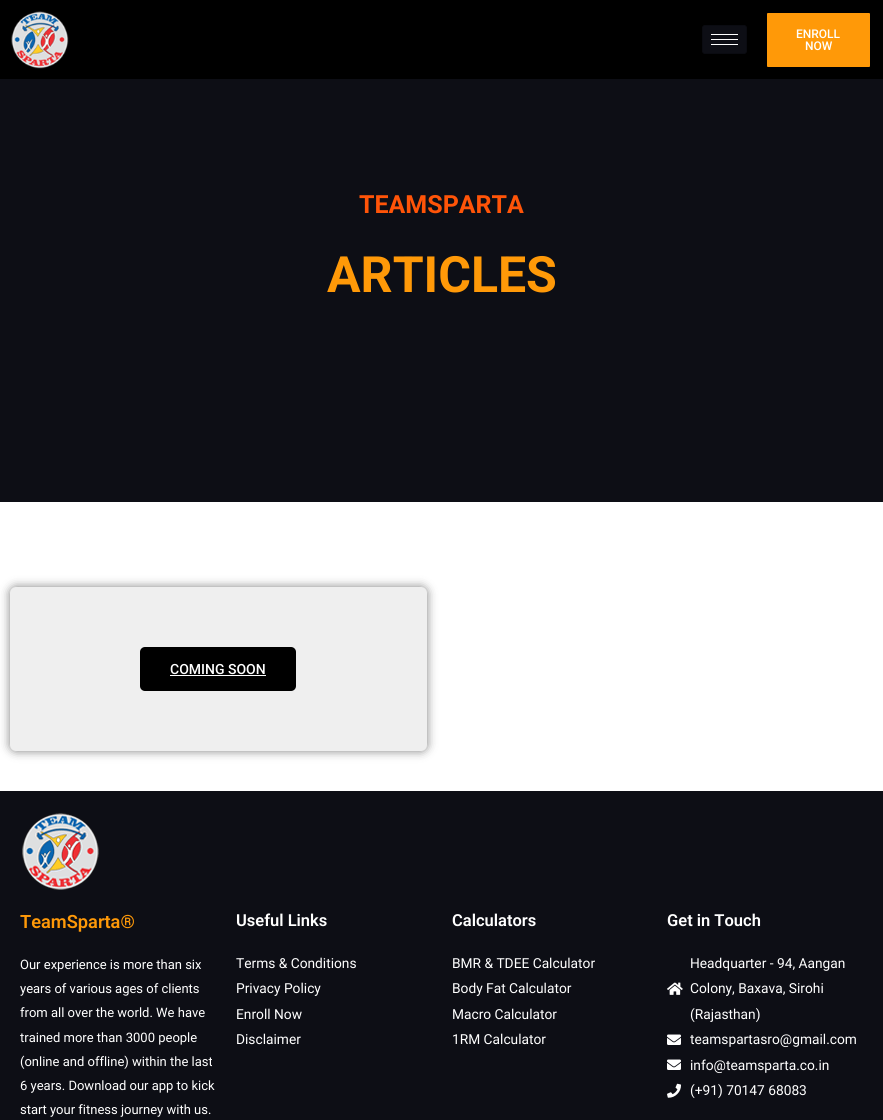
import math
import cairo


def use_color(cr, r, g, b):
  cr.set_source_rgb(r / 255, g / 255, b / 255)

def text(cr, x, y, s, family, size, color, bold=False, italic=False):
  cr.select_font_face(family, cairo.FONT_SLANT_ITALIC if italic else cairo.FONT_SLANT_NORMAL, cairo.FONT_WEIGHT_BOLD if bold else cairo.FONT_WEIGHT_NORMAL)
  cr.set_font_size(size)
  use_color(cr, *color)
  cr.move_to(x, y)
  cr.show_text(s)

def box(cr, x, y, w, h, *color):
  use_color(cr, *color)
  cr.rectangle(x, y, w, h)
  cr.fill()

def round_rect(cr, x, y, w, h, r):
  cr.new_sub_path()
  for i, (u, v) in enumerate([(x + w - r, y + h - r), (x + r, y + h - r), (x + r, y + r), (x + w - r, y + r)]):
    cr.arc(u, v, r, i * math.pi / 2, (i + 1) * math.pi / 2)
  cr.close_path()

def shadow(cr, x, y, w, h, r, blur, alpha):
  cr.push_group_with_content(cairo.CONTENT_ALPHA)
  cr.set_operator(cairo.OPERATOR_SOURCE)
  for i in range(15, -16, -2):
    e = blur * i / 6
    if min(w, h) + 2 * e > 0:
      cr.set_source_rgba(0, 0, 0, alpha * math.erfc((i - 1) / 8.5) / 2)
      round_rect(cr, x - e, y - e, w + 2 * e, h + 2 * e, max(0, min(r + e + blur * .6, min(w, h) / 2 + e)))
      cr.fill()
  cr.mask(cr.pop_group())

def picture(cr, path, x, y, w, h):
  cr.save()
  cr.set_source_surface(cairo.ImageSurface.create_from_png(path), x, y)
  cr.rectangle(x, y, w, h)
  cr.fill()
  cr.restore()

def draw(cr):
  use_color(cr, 255, 255, 255)
  cr.paint()
  box(cr, 0, 0, 883, 79, 0, 0, 0)
  picture(cr, "img_01.png", 11, 11, 58, 58)
  use_color(cr, 13, 14, 21)
  round_rect(cr, 702, 25, 45, 29, 3)
  cr.fill()
  round_rect(cr, 702.5, 25.5, 44, 28, 2.5)
  cr.set_source_rgba(0, 0, 0, 0.2)
  cr.set_line_width(1)
  cr.stroke()
  box(cr, 711, 34, 27, 1, 255, 255, 255)
  box(cr, 711, 39, 27, 1, 255, 255, 255)
  box(cr, 711, 44, 27, 1, 255, 255, 255)
  use_color(cr, 255, 153, 8)
  round_rect(cr, 767, 13, 103, 54, 1)
  cr.fill()
  box(cr, 0, 79, 883, 423, 13, 14, 21)
  use_color(cr, 0, 0, 0)
  shadow(cr, 10, 587, 417, 164, 6, 5, 0.5)
  use_color(cr, 239, 239, 239)
  round_rect(cr, 10, 587, 417, 164, 6)
  cr.fill()
  use_color(cr, 0, 0, 0)
  round_rect(cr, 140, 647, 156, 44, 5)
  cr.fill()
  box(cr, 170, 675, 96, 1, 255, 255, 255)
  box(cr, 0, 791, 883, 329, 13, 14, 21)
  picture(cr, "img_02.png", 22, 813, 77, 77)
  picture(cr, "img_03.png", 667, 982, 16, 13)
  picture(cr, "img_04.png", 667, 1034, 14, 11)
  picture(cr, "img_04.png", 667, 1059, 14, 11)
  picture(cr, "img_05.png", 667, 1083, 14, 15)
  text(cr, 796, 38, "ENROLL", "Roboto Medium", 12, (255, 255, 255))
  text(cr, 805, 50, "NOW", "Roboto Medium", 12, (255, 255, 255))
  text(cr, 359, 213, "TEAMSPARTA", "Roboto", 25, (255, 84, 8), bold=True)
  text(cr, 327, 292, "ARTICLES", "Roboto", 50, (255, 153, 8), bold=True)
  text(cr, 170, 674, "COMING SOON", "Roboto Medium", 14, (255, 255, 255))
  text(cr, 20, 928, "TeamSparta®", "Roboto SemiBold", 18.25, (255, 153, 8))
  text(cr, 20, 969, "Our experience is more than six", "Roboto", 13, (255, 255, 255))
  text(cr, 20, 993, "years of various ages of clients", "Roboto", 13, (255, 255, 255))
  text(cr, 20, 1017, "from all over the world. We have", "Roboto", 13, (255, 255, 255))
  text(cr, 20, 1042, "trained more than 3000 people", "Roboto", 13, (255, 255, 255))
  text(cr, 20, 1066, "(online and offline) within the last", "Roboto", 13, (255, 255, 255))
  text(cr, 20, 1090, "6 years. Download our app to kick", "Roboto", 13, (255, 255, 255))
  text(cr, 20, 1114, "start your fitness journey with us.", "Roboto", 13, (255, 255, 255))
  text(cr, 236, 926, "Useful Links", "Roboto SemiBold", 16.5, (255, 255, 255))
  text(cr, 236, 968, "Terms & Conditions", "Roboto", 13.75, (255, 255, 255))
  text(cr, 236, 993, "Privacy Policy", "Roboto", 13.75, (255, 255, 255))
  text(cr, 236, 1019, "Enroll Now", "Roboto", 13.75, (255, 255, 255))
  text(cr, 236, 1044, "Disclaimer", "Roboto", 13.75, (255, 255, 255))
  text(cr, 452, 926, "Calculators", "Roboto SemiBold", 16.5, (255, 255, 255))
  text(cr, 452, 968, "BMR & TDEE Calculator", "Roboto", 13.75, (255, 255, 255))
  text(cr, 452, 993, "Body Fat Calculator", "Roboto", 13.75, (255, 255, 255))
  text(cr, 452, 1019, "Macro Calculator", "Roboto", 13.75, (255, 255, 255))
  text(cr, 452, 1044, "1RM Calculator", "Roboto", 13.75, (255, 255, 255))
  text(cr, 667, 926, "Get in Touch", "Roboto SemiBold", 16.5, (255, 255, 255))
  text(cr, 690, 968, "Headquarter - 94, Aangan", "Roboto", 13.75, (255, 255, 255))
  text(cr, 690, 993, "Colony, Baxava, Sirohi", "Roboto", 13.75, (255, 255, 255))
  text(cr, 690, 1019, "(Rajasthan)", "Roboto", 13.75, (255, 255, 255))
  text(cr, 690, 1044, "teamspartasro@gmail.com", "Roboto", 13.75, (255, 255, 255))
  text(cr, 690, 1070, "info@teamsparta.co.in", "Roboto", 13.75, (255, 255, 255))
  text(cr, 690, 1095, "(+91) 70147 68083", "Roboto", 13.75, (255, 255, 255))


surface = cairo.ImageSurface(cairo.FORMAT_RGB24, 883, 1120)
cr = cairo.Context(surface)
options = cairo.FontOptions()
options.set_hint_metrics(cairo.HINT_METRICS_OFF)
options.set_hint_style(cairo.HINT_STYLE_NONE)
cr.set_font_options(options)
cr.set_miter_limit(4)
draw(cr)
surface.write_to_png("out.png")
